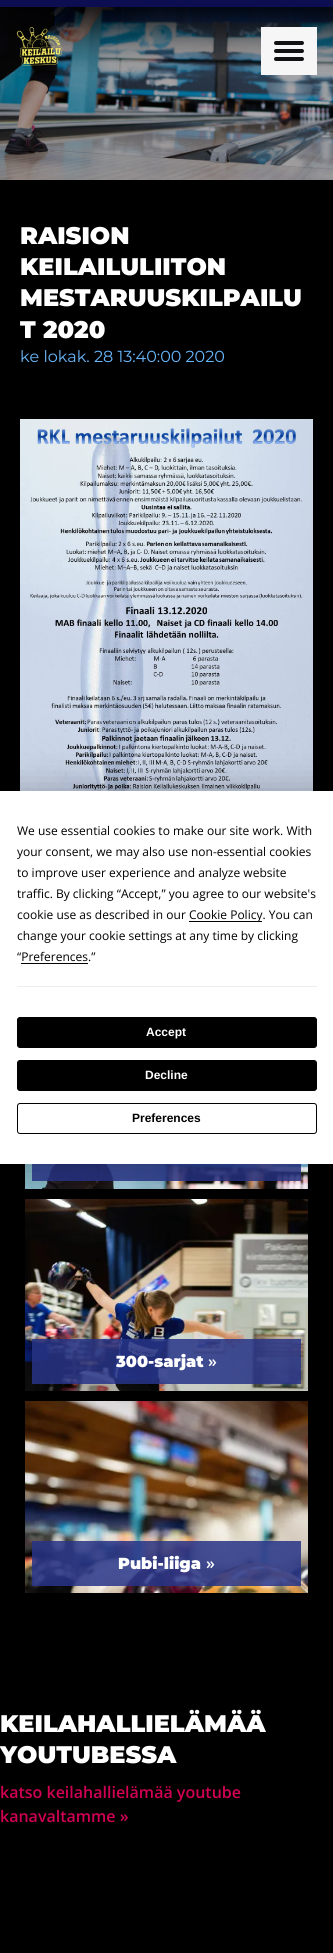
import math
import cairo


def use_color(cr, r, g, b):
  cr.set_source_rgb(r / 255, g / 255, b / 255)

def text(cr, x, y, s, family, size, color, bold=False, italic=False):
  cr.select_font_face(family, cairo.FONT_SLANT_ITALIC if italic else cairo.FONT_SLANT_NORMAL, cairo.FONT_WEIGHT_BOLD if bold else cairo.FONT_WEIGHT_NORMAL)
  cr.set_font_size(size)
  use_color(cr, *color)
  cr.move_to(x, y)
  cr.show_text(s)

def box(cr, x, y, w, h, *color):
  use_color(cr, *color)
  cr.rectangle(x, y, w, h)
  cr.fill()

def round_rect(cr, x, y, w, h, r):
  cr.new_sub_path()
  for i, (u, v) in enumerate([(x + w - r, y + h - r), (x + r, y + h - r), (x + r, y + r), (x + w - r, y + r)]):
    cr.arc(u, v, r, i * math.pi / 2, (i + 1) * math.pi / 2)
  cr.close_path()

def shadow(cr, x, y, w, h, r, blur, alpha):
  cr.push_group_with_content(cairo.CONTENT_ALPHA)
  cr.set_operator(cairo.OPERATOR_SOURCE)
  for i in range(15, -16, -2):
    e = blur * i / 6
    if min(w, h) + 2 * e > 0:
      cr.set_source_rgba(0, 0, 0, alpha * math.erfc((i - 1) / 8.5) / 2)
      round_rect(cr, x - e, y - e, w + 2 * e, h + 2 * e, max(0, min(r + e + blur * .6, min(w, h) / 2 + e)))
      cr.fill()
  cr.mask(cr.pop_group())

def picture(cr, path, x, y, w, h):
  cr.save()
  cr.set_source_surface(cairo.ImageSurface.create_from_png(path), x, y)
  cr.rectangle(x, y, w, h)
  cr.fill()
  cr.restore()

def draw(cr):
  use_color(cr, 0, 0, 0)
  cr.paint()
  picture(cr, "img_03.png", 0, 7, 333, 173)
  picture(cr, "img_01.png", 0, 7, 333, 65)
  box(cr, 0, 0, 333, 7, 13, 14, 82)
  picture(cr, "img_02.png", 16, 26, 47, 40)
  box(cr, 261, 27, 56, 48, 246, 246, 246)
  use_color(cr, 18, 18, 20)
  round_rect(cr, 274, 41, 30, 4, 2)
  cr.fill()
  round_rect(cr, 274, 49, 30, 4, 2)
  cr.fill()
  round_rect(cr, 274, 57, 30, 4, 2)
  cr.fill()
  picture(cr, "img_04.png", 20, 419, 293, 372)
  picture(cr, "img_05.png", 25, 1164, 283, 25)
  cr.set_source_rgba(0.153, 0.204, 0.529, 0.85)
  cr.rectangle(32, 1164, 269, 17)
  cr.fill()
  picture(cr, "img_06.png", 25, 1199, 283, 192)
  use_color(cr, 0, 0, 0)
  shadow(cr, -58, 791, 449, 373, 5, 17.5, 0.25)
  box(cr, 0, 791, 333, 373, 255, 255, 255)
  box(cr, 189, 921, 73, 1, 0, 0, 0)
  box(cr, 21, 963, 67, 1, 0, 0, 0)
  box(cr, 17, 986, 300, 1, 237, 237, 239)
  use_color(cr, 0, 0, 0)
  round_rect(cr, 17.5, 1017.5, 299, 30, 2.5)
  cr.fill_preserve()
  cr.set_line_width(1)
  cr.stroke()
  round_rect(cr, 17.5, 1060.5, 299, 30, 2.5)
  cr.fill_preserve()
  cr.stroke()
  round_rect(cr, 17.5, 1103.5, 299, 30, 2.5)
  cr.stroke()
  cr.set_source_rgba(0.153, 0.204, 0.529, 0.85)
  cr.rectangle(32, 1339, 269, 45)
  cr.fill()
  picture(cr, "img_07.png", 25, 1401, 283, 192)
  cr.rectangle(32, 1541, 269, 45)
  cr.fill()
  text(cr, 20, 244, "RAISION", "Montserrat Black", 24, (255, 255, 255))
  text(cr, 20, 275, "KEILAILULIITON", "Montserrat Black", 24, (255, 255, 255))
  text(cr, 20, 306, "MESTARUUSKILPAILU", "Montserrat Black", 24, (255, 255, 255))
  text(cr, 20, 338, "T 2020", "Montserrat Black", 24, (255, 255, 255))
  text(cr, 20, 362, "ke lokak. 28 13:40:00 2020", "Montserrat", 16, (104, 183, 251))
  text(cr, 17, 835, "We use essential cookies to make our site work. With", "Open Sans", 12, (0, 0, 0))
  text(cr, 17, 856, "your consent, we may also use non-essential cookies", "Open Sans", 12, (0, 0, 0))
  text(cr, 17, 877, "to improve user experience and analyze website", "Open Sans", 12, (0, 0, 0))
  text(cr, 17, 898, "traffic. By clicking “Accept,” you agree to our website's", "Open Sans", 12, (0, 0, 0))
  text(cr, 17, 919, "cookie use as described in our", "Open Sans", 12, (0, 0, 0))
  text(cr, 189, 919, "Cookie Policy. You can", "Open Sans", 12, (0, 0, 0))
  text(cr, 17, 940, "change your cookie settings at any time by clicking", "Open Sans", 12, (0, 0, 0))
  text(cr, 17, 961, "“Preferences.”", "Open Sans", 12, (0, 0, 0))
  text(cr, 146, 1036, "Accept", "Liberation Sans", 12, (255, 255, 255), bold=True)
  text(cr, 145, 1079, "Decline", "Liberation Sans", 12, (255, 255, 255), bold=True)
  text(cr, 132, 1122, "Preferences", "Liberation Sans", 12, (0, 0, 0), bold=True)
  text(cr, 116, 1367, "300-sarjat", "Montserrat Black", 16, (255, 255, 255))
  text(cr, 208, 1367, "»", "Open Sans SemiBold", 16, (255, 255, 255))
  text(cr, 118, 1569, "Pubi-liiga", "Montserrat Black", 16, (255, 255, 255))
  text(cr, 206, 1569, "»", "Open Sans SemiBold", 16, (255, 255, 255))
  text(cr, 0, 1732, "KEILAHALLIELÄMÄÄ", "Montserrat Black", 24, (255, 255, 255))
  text(cr, 0, 1763, "YOUTUBESSA", "Montserrat Black", 24, (255, 255, 255))
  text(cr, 0, 1798, "katso keilahallielämää youtube", "Open Sans SemiBold", 16, (210, 0, 84))
  text(cr, 0, 1822, "kanavaltamme »", "Open Sans SemiBold", 16, (210, 0, 84))


surface = cairo.ImageSurface(cairo.FORMAT_RGB24, 333, 1953)
cr = cairo.Context(surface)
options = cairo.FontOptions()
options.set_hint_metrics(cairo.HINT_METRICS_OFF)
options.set_hint_style(cairo.HINT_STYLE_NONE)
cr.set_font_options(options)
cr.set_miter_limit(4)
draw(cr)
surface.write_to_png("out.png")
